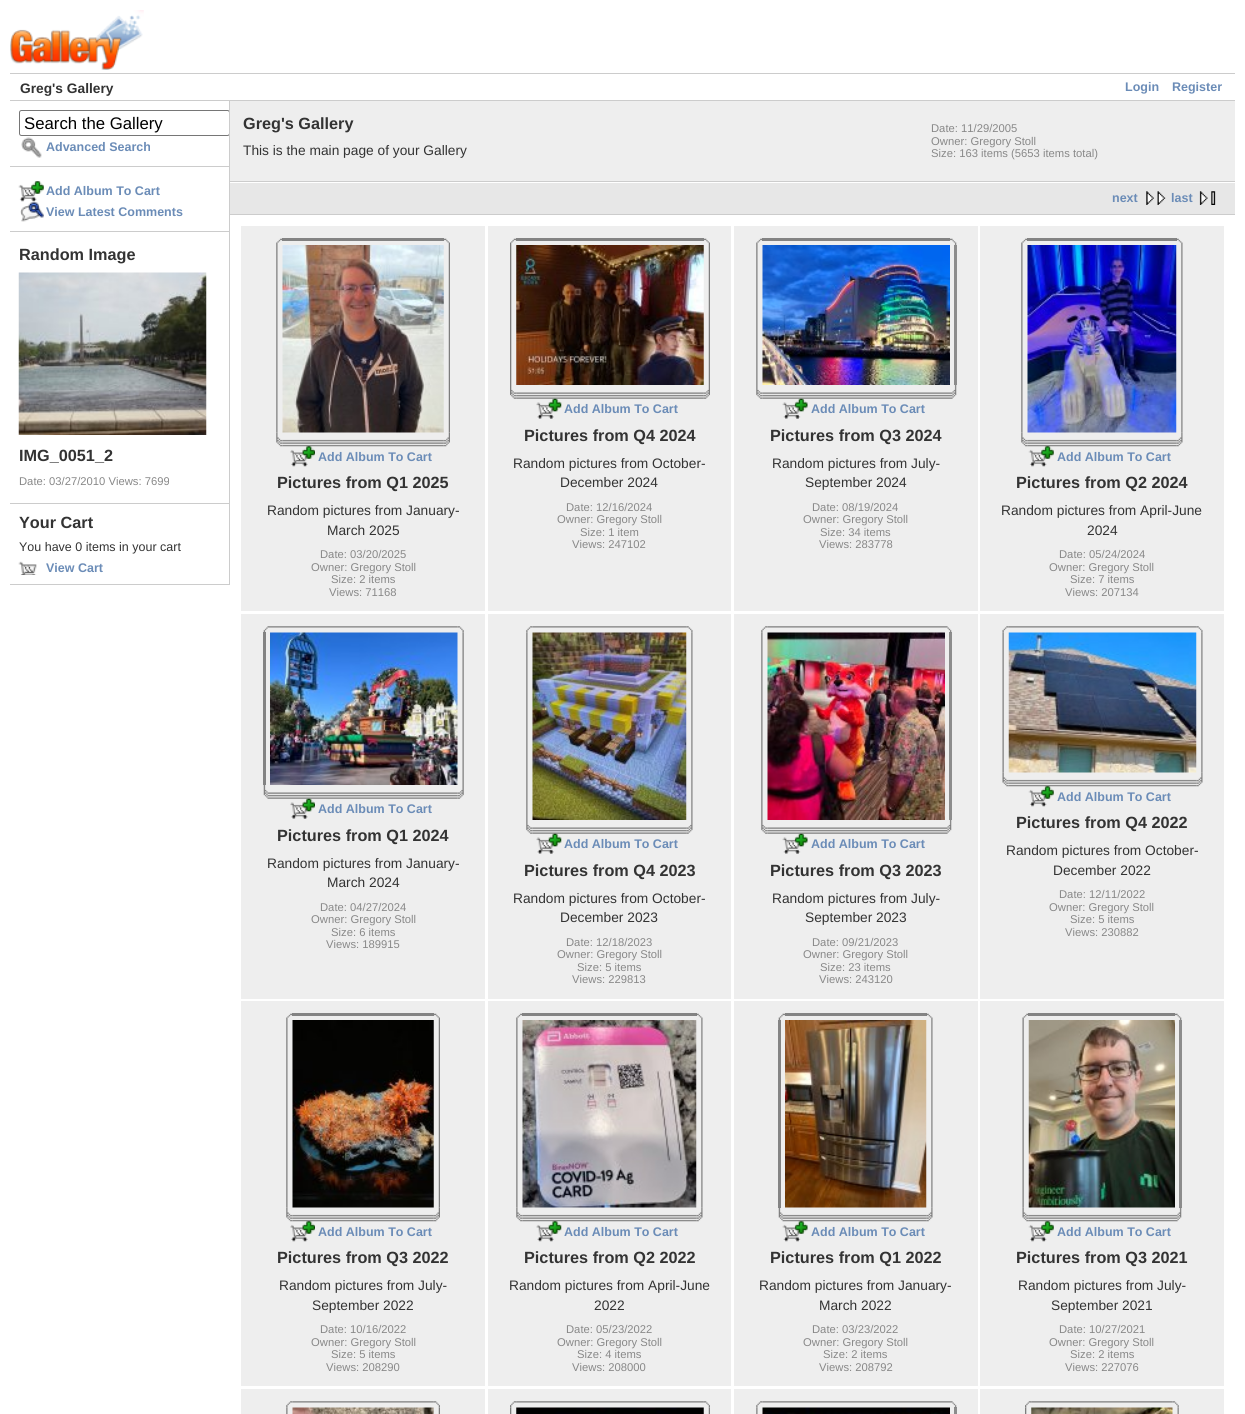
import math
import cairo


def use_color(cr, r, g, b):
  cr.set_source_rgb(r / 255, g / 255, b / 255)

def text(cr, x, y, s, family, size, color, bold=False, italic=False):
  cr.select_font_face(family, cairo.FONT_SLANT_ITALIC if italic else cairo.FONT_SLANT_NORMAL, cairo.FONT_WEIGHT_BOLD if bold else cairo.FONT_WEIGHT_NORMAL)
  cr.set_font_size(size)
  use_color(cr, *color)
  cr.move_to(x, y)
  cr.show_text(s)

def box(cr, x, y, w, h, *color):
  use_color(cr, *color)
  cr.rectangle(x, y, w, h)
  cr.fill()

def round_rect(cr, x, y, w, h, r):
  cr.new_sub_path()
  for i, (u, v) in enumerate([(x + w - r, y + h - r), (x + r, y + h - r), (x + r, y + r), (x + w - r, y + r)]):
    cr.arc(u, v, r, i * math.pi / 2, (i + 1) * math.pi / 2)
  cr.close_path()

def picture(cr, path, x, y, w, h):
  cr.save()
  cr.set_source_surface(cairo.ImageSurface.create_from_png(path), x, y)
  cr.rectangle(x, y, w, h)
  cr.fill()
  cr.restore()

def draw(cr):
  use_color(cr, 255, 255, 255)
  cr.paint()
  picture(cr, "img_01.png", 10, 10, 134, 60)
  box(cr, 10, 73, 1225, 1, 204, 204, 204)
  box(cr, 10, 100, 1225, 1, 204, 204, 204)
  box(cr, 229, 101, 1, 484, 204, 204, 204)
  box(cr, 10, 166, 219, 1, 204, 204, 204)
  cr.save()
  cr.rectangle(10, 101, 219, 484)
  cr.clip()
  round_rect(cr, 19.5, 110.5, 210, 25, 2)
  use_color(cr, 118, 118, 118)
  cr.set_line_width(1)
  cr.stroke()
  cr.restore()
  picture(cr, "img_02.png", 21, 137, 21, 21)
  box(cr, 10, 231, 219, 1, 204, 204, 204)
  picture(cr, "img_03.png", 18, 181, 26, 21)
  picture(cr, "img_04.png", 20, 202, 24, 20)
  box(cr, 10, 503, 219, 1, 204, 204, 204)
  picture(cr, "img_05.png", 18, 272, 189, 163)
  box(cr, 10, 584, 219, 1, 204, 204, 204)
  picture(cr, "img_06.png", 18, 561, 19, 14)
  box(cr, 230, 101, 1005, 80, 238, 238, 238)
  box(cr, 230, 181, 1005, 1, 204, 204, 204)
  box(cr, 230, 183, 1005, 31, 231, 231, 231)
  box(cr, 230, 214, 1005, 1, 204, 204, 204)
  picture(cr, "img_07.png", 1146, 191, 20, 14)
  picture(cr, "img_08.png", 1199, 191, 17, 14)
  box(cr, 241, 226, 244, 385, 238, 238, 238)
  picture(cr, "img_09.png", 276, 238, 7, 7)
  cr.set_source_rgba(0.49, 0.49, 0.49, 0.94)
  cr.rectangle(282, 238, 162, 3)
  cr.fill()
  picture(cr, "img_10.png", 444, 238, 6, 7)
  picture(cr, "img_11.png", 276, 245, 2, 188)
  picture(cr, "img_14.png", 276, 432, 7, 15)
  picture(cr, "img_13.png", 448, 245, 2, 188)
  picture(cr, "img_15.png", 282, 439, 162, 8)
  picture(cr, "img_16.png", 443, 432, 7, 15)
  picture(cr, "img_12.png", 282, 245, 162, 188)
  picture(cr, "img_17.png", 290, 446, 25, 21)
  box(cr, 488, 226, 243, 385, 238, 238, 238)
  picture(cr, "img_18.png", 510, 238, 7, 7)
  cr.set_source_rgba(0.49, 0.49, 0.49, 0.94)
  cr.rectangle(516, 238, 188, 3)
  cr.fill()
  picture(cr, "img_19.png", 704, 238, 6, 7)
  picture(cr, "img_20.png", 510, 245, 2, 140)
  picture(cr, "img_21.png", 516, 245, 188, 140)
  picture(cr, "img_22.png", 708, 245, 2, 140)
  picture(cr, "img_23.png", 510, 385, 7, 14)
  picture(cr, "img_24.png", 516, 392, 188, 7)
  picture(cr, "img_25.png", 703, 385, 7, 14)
  picture(cr, "img_26.png", 536, 398, 26, 21)
  box(cr, 734, 226, 244, 385, 238, 238, 238)
  picture(cr, "img_09.png", 756, 238, 7, 7)
  cr.set_source_rgba(0.49, 0.49, 0.49, 0.94)
  cr.rectangle(762, 238, 188, 3)
  cr.fill()
  picture(cr, "img_27.png", 950, 238, 7, 7)
  picture(cr, "img_28.png", 756, 245, 2, 140)
  picture(cr, "img_29.png", 762, 245, 188, 140)
  box(cr, 954, 245, 3, 140, 140, 140, 140)
  picture(cr, "img_30.png", 756, 385, 7, 14)
  picture(cr, "img_31.png", 762, 392, 188, 7)
  picture(cr, "img_32.png", 950, 385, 7, 14)
  picture(cr, "img_33.png", 782, 398, 26, 21)
  box(cr, 980, 226, 244, 385, 238, 238, 238)
  picture(cr, "img_09.png", 1021, 238, 7, 7)
  cr.set_source_rgba(0.49, 0.49, 0.49, 0.94)
  cr.rectangle(1027, 238, 150, 3)
  cr.fill()
  picture(cr, "img_34.png", 1176, 238, 7, 7)
  picture(cr, "img_11.png", 1021, 245, 2, 188)
  picture(cr, "img_14.png", 1021, 432, 7, 15)
  picture(cr, "img_36.png", 1181, 245, 2, 188)
  picture(cr, "img_37.png", 1027, 439, 150, 8)
  picture(cr, "img_38.png", 1176, 432, 7, 15)
  picture(cr, "img_35.png", 1027, 245, 150, 188)
  picture(cr, "img_39.png", 1028, 446, 26, 21)
  box(cr, 241, 614, 244, 385, 238, 238, 238)
  picture(cr, "img_40.png", 263, 626, 7, 7)
  picture(cr, "img_41.png", 270, 626, 188, 2)
  picture(cr, "img_42.png", 457, 626, 7, 7)
  cr.set_source_rgba(0.49, 0.49, 0.49, 0.94)
  cr.rectangle(263, 632, 3, 153)
  cr.fill()
  picture(cr, "img_43.png", 270, 632, 188, 153)
  picture(cr, "img_44.png", 462, 632, 2, 153)
  picture(cr, "img_45.png", 263, 785, 7, 14)
  picture(cr, "img_46.png", 270, 792, 188, 7)
  picture(cr, "img_47.png", 457, 785, 7, 14)
  picture(cr, "img_48.png", 290, 798, 25, 21)
  box(cr, 488, 614, 243, 385, 238, 238, 238)
  picture(cr, "img_49.png", 526, 626, 7, 7)
  picture(cr, "img_50.png", 532, 626, 155, 2)
  picture(cr, "img_51.png", 686, 626, 7, 7)
  picture(cr, "img_52.png", 526, 632, 2, 188)
  picture(cr, "img_53.png", 532, 632, 155, 188)
  picture(cr, "img_54.png", 691, 632, 2, 188)
  picture(cr, "img_30.png", 526, 820, 7, 14)
  picture(cr, "img_55.png", 532, 827, 155, 7)
  picture(cr, "img_56.png", 686, 820, 7, 14)
  picture(cr, "img_26.png", 536, 833, 26, 21)
  box(cr, 734, 614, 244, 385, 238, 238, 238)
  picture(cr, "img_49.png", 761, 626, 7, 7)
  picture(cr, "img_57.png", 767, 626, 178, 2)
  picture(cr, "img_58.png", 945, 626, 7, 7)
  picture(cr, "img_52.png", 761, 632, 2, 188)
  picture(cr, "img_59.png", 767, 632, 178, 188)
  cr.set_source_rgba(0.49, 0.49, 0.49, 0.87)
  cr.rectangle(949, 632, 3, 188)
  cr.fill()
  picture(cr, "img_30.png", 761, 820, 7, 14)
  picture(cr, "img_60.png", 767, 827, 178, 7)
  picture(cr, "img_32.png", 945, 820, 7, 14)
  picture(cr, "img_33.png", 782, 833, 26, 21)
  box(cr, 980, 614, 244, 385, 238, 238, 238)
  picture(cr, "img_61.png", 1002, 626, 7, 7)
  picture(cr, "img_62.png", 1008, 626, 189, 2)
  picture(cr, "img_51.png", 1196, 626, 7, 7)
  picture(cr, "img_63.png", 1002, 632, 2, 141)
  picture(cr, "img_66.png", 1002, 772, 7, 15)
  picture(cr, "img_65.png", 1201, 632, 2, 141)
  picture(cr, "img_67.png", 1008, 779, 189, 8)
  picture(cr, "img_68.png", 1196, 772, 7, 15)
  picture(cr, "img_64.png", 1008, 632, 189, 141)
  picture(cr, "img_39.png", 1028, 786, 26, 21)
  box(cr, 241, 1001, 244, 385, 238, 238, 238)
  picture(cr, "img_09.png", 286, 1013, 7, 7)
  cr.set_source_rgba(0.49, 0.49, 0.49, 0.94)
  cr.rectangle(292, 1013, 142, 3)
  cr.fill()
  picture(cr, "img_10.png", 434, 1013, 6, 7)
  picture(cr, "img_11.png", 286, 1020, 2, 188)
  picture(cr, "img_14.png", 286, 1207, 7, 15)
  picture(cr, "img_13.png", 438, 1020, 2, 188)
  picture(cr, "img_70.png", 292, 1214, 142, 8)
  picture(cr, "img_16.png", 433, 1207, 7, 15)
  picture(cr, "img_69.png", 292, 1020, 142, 188)
  picture(cr, "img_71.png", 290, 1221, 25, 21)
  box(cr, 488, 1001, 243, 385, 238, 238, 238)
  picture(cr, "img_09.png", 516, 1013, 7, 7)
  cr.set_source_rgba(0.49, 0.49, 0.49, 0.94)
  cr.rectangle(522, 1013, 175, 3)
  cr.fill()
  picture(cr, "img_34.png", 696, 1013, 7, 7)
  picture(cr, "img_11.png", 516, 1020, 2, 188)
  picture(cr, "img_14.png", 516, 1207, 7, 15)
  picture(cr, "img_36.png", 701, 1020, 2, 188)
  picture(cr, "img_73.png", 522, 1214, 175, 8)
  picture(cr, "img_38.png", 696, 1207, 7, 15)
  picture(cr, "img_72.png", 522, 1020, 175, 188)
  picture(cr, "img_74.png", 536, 1221, 26, 21)
  box(cr, 734, 1001, 244, 385, 238, 238, 238)
  picture(cr, "img_75.png", 778, 1013, 7, 7)
  box(cr, 785, 1013, 142, 3, 132, 132, 132)
  picture(cr, "img_34.png", 926, 1013, 7, 7)
  box(cr, 778, 1020, 3, 188, 132, 132, 132)
  picture(cr, "img_36.png", 931, 1020, 2, 188)
  picture(cr, "img_78.png", 785, 1214, 142, 8)
  picture(cr, "img_38.png", 926, 1207, 7, 15)
  picture(cr, "img_76.png", 785, 1020, 142, 188)
  picture(cr, "img_77.png", 778, 1207, 7, 15)
  picture(cr, "img_79.png", 782, 1221, 26, 21)
  box(cr, 980, 1001, 244, 385, 238, 238, 238)
  picture(cr, "img_80.png", 1022, 1013, 7, 7)
  cr.set_source_rgba(0.49, 0.49, 0.49, 0.94)
  cr.rectangle(1028, 1013, 147, 3)
  cr.fill()
  picture(cr, "img_27.png", 1175, 1013, 7, 7)
  picture(cr, "img_81.png", 1022, 1020, 2, 188)
  picture(cr, "img_83.png", 1022, 1207, 7, 15)
  picture(cr, "img_82.png", 1028, 1020, 147, 188)
  box(cr, 1179, 1020, 3, 188, 140, 140, 140)
  picture(cr, "img_84.png", 1028, 1214, 147, 8)
  picture(cr, "img_85.png", 1175, 1207, 7, 15)
  picture(cr, "img_86.png", 1028, 1221, 26, 21)
  box(cr, 241, 1389, 244, 25, 238, 238, 238)
  picture(cr, "img_49.png", 286, 1401, 7, 7)
  picture(cr, "img_87.png", 292, 1401, 142, 2)
  picture(cr, "img_88.png", 433, 1401, 7, 7)
  picture(cr, "img_89.png", 286, 1407, 2, 7)
  picture(cr, "img_90.png", 292, 1407, 142, 7)
  picture(cr, "img_91.png", 438, 1407, 2, 7)
  box(cr, 488, 1389, 243, 25, 238, 238, 238)
  picture(cr, "img_92.png", 510, 1401, 7, 7)
  picture(cr, "img_93.png", 516, 1401, 188, 2)
  picture(cr, "img_94.png", 703, 1401, 7, 7)
  picture(cr, "img_95.png", 510, 1407, 2, 7)
  picture(cr, "img_96.png", 516, 1407, 188, 7)
  picture(cr, "img_91.png", 708, 1407, 2, 7)
  box(cr, 734, 1389, 244, 25, 238, 238, 238)
  picture(cr, "img_49.png", 756, 1401, 7, 7)
  picture(cr, "img_97.png", 762, 1401, 188, 2)
  picture(cr, "img_58.png", 950, 1401, 7, 7)
  picture(cr, "img_89.png", 756, 1407, 2, 7)
  picture(cr, "img_98.png", 762, 1407, 188, 7)
  cr.set_source_rgba(0.49, 0.49, 0.49, 0.87)
  cr.rectangle(954, 1407, 3, 7)
  cr.fill()
  box(cr, 980, 1389, 244, 25, 238, 238, 238)
  picture(cr, "img_99.png", 1025, 1401, 7, 7)
  picture(cr, "img_100.png", 1031, 1401, 142, 2)
  picture(cr, "img_101.png", 1172, 1401, 7, 7)
  picture(cr, "img_95.png", 1025, 1407, 2, 7)
  picture(cr, "img_102.png", 1031, 1407, 142, 7)
  picture(cr, "img_103.png", 1177, 1407, 2, 7)
  text(cr, 20, 93, "Greg's Gallery", "Liberation Sans", 13.75, (51, 51, 51), bold=True)
  text(cr, 1125, 91, "Login", "Liberation Sans", 12.5, (107, 140, 183), bold=True)
  text(cr, 1172, 91, "Register", "Liberation Sans", 12.5, (107, 140, 183), bold=True)
  text(cr, 24, 129, "Search the Gallery", "Liberation Sans", 16.75, (0, 0, 0))
  text(cr, 46, 151, "Advanced Search", "Liberation Sans", 12.5, (107, 140, 183), bold=True)
  text(cr, 46, 195, "Add Album To Cart", "Liberation Sans", 12.5, (107, 140, 183), bold=True)
  text(cr, 46, 216, "View Latest Comments", "Liberation Sans", 12.5, (107, 140, 183), bold=True)
  text(cr, 19, 260, "Random Image", "Liberation Sans", 16.25, (51, 51, 51), bold=True)
  text(cr, 19, 461, "IMG_0051_2", "Liberation Sans", 16.25, (51, 51, 51), bold=True)
  text(cr, 19, 485, "Date: 03/27/2010 Views: 7699", "Liberation Sans", 11.25, (136, 136, 136))
  text(cr, 19, 528, "Your Cart", "Liberation Sans", 16.25, (51, 51, 51), bold=True)
  text(cr, 19, 551, "You have 0 items in your cart", "Liberation Sans", 12.5, (51, 51, 51))
  text(cr, 46, 572, "View Cart", "Liberation Sans", 12.5, (107, 140, 183), bold=True)
  text(cr, 243, 129, "Greg's Gallery", "Liberation Sans", 16.25, (51, 51, 51), bold=True)
  text(cr, 243, 155, "This is the main page of your Gallery", "Liberation Sans", 13.75, (51, 51, 51))
  text(cr, 931, 132, "Date: 11/29/2005", "Liberation Sans", 11.25, (136, 136, 136))
  text(cr, 931, 145, "Owner: Gregory Stoll", "Liberation Sans", 11.25, (136, 136, 136))
  text(cr, 931, 157, "Size: 163 items (5653 items total)", "Liberation Sans", 11.25, (136, 136, 136))
  text(cr, 1112, 202, "next", "Liberation Sans", 12.5, (107, 140, 183), bold=True)
  text(cr, 1171, 202, "last", "Liberation Sans", 12.5, (107, 140, 183), bold=True)
  text(cr, 318, 461, "Add Album To Cart", "Liberation Sans", 12.5, (107, 140, 183), bold=True)
  text(cr, 277, 488, "Pictures from Q1 2025", "Liberation Sans", 16.25, (51, 51, 51), bold=True)
  text(cr, 267, 515, "Random pictures from January-", "Liberation Sans", 13.75, (51, 51, 51))
  text(cr, 327, 535, "March 2025", "Liberation Sans", 13.75, (51, 51, 51))
  text(cr, 320, 558, "Date: 03/20/2025", "Liberation Sans", 11.25, (136, 136, 136))
  text(cr, 311, 571, "Owner: Gregory Stoll", "Liberation Sans", 11.25, (136, 136, 136))
  text(cr, 331, 583, "Size: 2 items", "Liberation Sans", 11.25, (136, 136, 136))
  text(cr, 329, 596, "Views: 71168", "Liberation Sans", 11.25, (136, 136, 136))
  text(cr, 564, 413, "Add Album To Cart", "Liberation Sans", 12.5, (107, 140, 183), bold=True)
  text(cr, 524, 441, "Pictures from Q4 2024", "Liberation Sans", 16.25, (51, 51, 51), bold=True)
  text(cr, 513, 468, "Random pictures from October-", "Liberation Sans", 13.75, (51, 51, 51))
  text(cr, 560, 487, "December 2024", "Liberation Sans", 13.75, (51, 51, 51))
  text(cr, 566, 511, "Date: 12/16/2024", "Liberation Sans", 11.25, (136, 136, 136))
  text(cr, 557, 523, "Owner: Gregory Stoll", "Liberation Sans", 11.25, (136, 136, 136))
  text(cr, 580, 536, "Size: 1 item", "Liberation Sans", 11.25, (136, 136, 136))
  text(cr, 572, 548, "Views: 247102", "Liberation Sans", 11.25, (136, 136, 136))
  text(cr, 811, 413, "Add Album To Cart", "Liberation Sans", 12.5, (107, 140, 183), bold=True)
  text(cr, 770, 441, "Pictures from Q3 2024", "Liberation Sans", 16.25, (51, 51, 51), bold=True)
  text(cr, 772, 468, "Random pictures from July-", "Liberation Sans", 13.75, (51, 51, 51))
  text(cr, 805, 487, "September 2024", "Liberation Sans", 13.75, (51, 51, 51))
  text(cr, 812, 511, "Date: 08/19/2024", "Liberation Sans", 11.25, (136, 136, 136))
  text(cr, 803, 523, "Owner: Gregory Stoll", "Liberation Sans", 11.25, (136, 136, 136))
  text(cr, 820, 536, "Size: 34 items", "Liberation Sans", 11.25, (136, 136, 136))
  text(cr, 819, 548, "Views: 283778", "Liberation Sans", 11.25, (136, 136, 136))
  text(cr, 1057, 461, "Add Album To Cart", "Liberation Sans", 12.5, (107, 140, 183), bold=True)
  text(cr, 1016, 488, "Pictures from Q2 2024", "Liberation Sans", 16.25, (51, 51, 51), bold=True)
  text(cr, 1001, 515, "Random pictures from April-June", "Liberation Sans", 13.75, (51, 51, 51))
  text(cr, 1087, 535, "2024", "Liberation Sans", 13.75, (51, 51, 51))
  text(cr, 1059, 558, "Date: 05/24/2024", "Liberation Sans", 11.25, (136, 136, 136))
  text(cr, 1049, 571, "Owner: Gregory Stoll", "Liberation Sans", 11.25, (136, 136, 136))
  text(cr, 1070, 583, "Size: 7 items", "Liberation Sans", 11.25, (136, 136, 136))
  text(cr, 1065, 596, "Views: 207134", "Liberation Sans", 11.25, (136, 136, 136))
  text(cr, 318, 813, "Add Album To Cart", "Liberation Sans", 12.5, (107, 140, 183), bold=True)
  text(cr, 277, 841, "Pictures from Q1 2024", "Liberation Sans", 16.25, (51, 51, 51), bold=True)
  text(cr, 267, 868, "Random pictures from January-", "Liberation Sans", 13.75, (51, 51, 51))
  text(cr, 327, 887, "March 2024", "Liberation Sans", 13.75, (51, 51, 51))
  text(cr, 320, 911, "Date: 04/27/2024", "Liberation Sans", 11.25, (136, 136, 136))
  text(cr, 311, 923, "Owner: Gregory Stoll", "Liberation Sans", 11.25, (136, 136, 136))
  text(cr, 331, 936, "Size: 6 items", "Liberation Sans", 11.25, (136, 136, 136))
  text(cr, 326, 948, "Views: 189915", "Liberation Sans", 11.25, (136, 136, 136))
  text(cr, 564, 848, "Add Album To Cart", "Liberation Sans", 12.5, (107, 140, 183), bold=True)
  text(cr, 524, 876, "Pictures from Q4 2023", "Liberation Sans", 16.25, (51, 51, 51), bold=True)
  text(cr, 513, 903, "Random pictures from October-", "Liberation Sans", 13.75, (51, 51, 51))
  text(cr, 560, 922, "December 2023", "Liberation Sans", 13.75, (51, 51, 51))
  text(cr, 566, 946, "Date: 12/18/2023", "Liberation Sans", 11.25, (136, 136, 136))
  text(cr, 557, 958, "Owner: Gregory Stoll", "Liberation Sans", 11.25, (136, 136, 136))
  text(cr, 577, 971, "Size: 5 items", "Liberation Sans", 11.25, (136, 136, 136))
  text(cr, 572, 983, "Views: 229813", "Liberation Sans", 11.25, (136, 136, 136))
  text(cr, 811, 848, "Add Album To Cart", "Liberation Sans", 12.5, (107, 140, 183), bold=True)
  text(cr, 770, 876, "Pictures from Q3 2023", "Liberation Sans", 16.25, (51, 51, 51), bold=True)
  text(cr, 772, 903, "Random pictures from July-", "Liberation Sans", 13.75, (51, 51, 51))
  text(cr, 805, 922, "September 2023", "Liberation Sans", 13.75, (51, 51, 51))
  text(cr, 812, 946, "Date: 09/21/2023", "Liberation Sans", 11.25, (136, 136, 136))
  text(cr, 803, 958, "Owner: Gregory Stoll", "Liberation Sans", 11.25, (136, 136, 136))
  text(cr, 820, 971, "Size: 23 items", "Liberation Sans", 11.25, (136, 136, 136))
  text(cr, 819, 983, "Views: 243120", "Liberation Sans", 11.25, (136, 136, 136))
  text(cr, 1057, 801, "Add Album To Cart", "Liberation Sans", 12.5, (107, 140, 183), bold=True)
  text(cr, 1016, 828, "Pictures from Q4 2022", "Liberation Sans", 16.25, (51, 51, 51), bold=True)
  text(cr, 1006, 855, "Random pictures from October-", "Liberation Sans", 13.75, (51, 51, 51))
  text(cr, 1053, 875, "December 2022", "Liberation Sans", 13.75, (51, 51, 51))
  text(cr, 1059, 898, "Date: 12/11/2022", "Liberation Sans", 11.25, (136, 136, 136))
  text(cr, 1049, 911, "Owner: Gregory Stoll", "Liberation Sans", 11.25, (136, 136, 136))
  text(cr, 1070, 923, "Size: 5 items", "Liberation Sans", 11.25, (136, 136, 136))
  text(cr, 1065, 936, "Views: 230882", "Liberation Sans", 11.25, (136, 136, 136))
  text(cr, 318, 1236, "Add Album To Cart", "Liberation Sans", 12.5, (107, 140, 183), bold=True)
  text(cr, 277, 1263, "Pictures from Q3 2022", "Liberation Sans", 16.25, (51, 51, 51), bold=True)
  text(cr, 279, 1290, "Random pictures from July-", "Liberation Sans", 13.75, (51, 51, 51))
  text(cr, 312, 1310, "September 2022", "Liberation Sans", 13.75, (51, 51, 51))
  text(cr, 320, 1333, "Date: 10/16/2022", "Liberation Sans", 11.25, (136, 136, 136))
  text(cr, 311, 1346, "Owner: Gregory Stoll", "Liberation Sans", 11.25, (136, 136, 136))
  text(cr, 331, 1358, "Size: 5 items", "Liberation Sans", 11.25, (136, 136, 136))
  text(cr, 326, 1371, "Views: 208290", "Liberation Sans", 11.25, (136, 136, 136))
  text(cr, 564, 1236, "Add Album To Cart", "Liberation Sans", 12.5, (107, 140, 183), bold=True)
  text(cr, 524, 1263, "Pictures from Q2 2022", "Liberation Sans", 16.25, (51, 51, 51), bold=True)
  text(cr, 509, 1290, "Random pictures from April-June", "Liberation Sans", 13.75, (51, 51, 51))
  text(cr, 594, 1310, "2022", "Liberation Sans", 13.75, (51, 51, 51))
  text(cr, 566, 1333, "Date: 05/23/2022", "Liberation Sans", 11.25, (136, 136, 136))
  text(cr, 557, 1346, "Owner: Gregory Stoll", "Liberation Sans", 11.25, (136, 136, 136))
  text(cr, 577, 1358, "Size: 4 items", "Liberation Sans", 11.25, (136, 136, 136))
  text(cr, 572, 1371, "Views: 208000", "Liberation Sans", 11.25, (136, 136, 136))
  text(cr, 811, 1236, "Add Album To Cart", "Liberation Sans", 12.5, (107, 140, 183), bold=True)
  text(cr, 770, 1263, "Pictures from Q1 2022", "Liberation Sans", 16.25, (51, 51, 51), bold=True)
  text(cr, 759, 1290, "Random pictures from January-", "Liberation Sans", 13.75, (51, 51, 51))
  text(cr, 819, 1310, "March 2022", "Liberation Sans", 13.75, (51, 51, 51))
  text(cr, 812, 1333, "Date: 03/23/2022", "Liberation Sans", 11.25, (136, 136, 136))
  text(cr, 803, 1346, "Owner: Gregory Stoll", "Liberation Sans", 11.25, (136, 136, 136))
  text(cr, 823, 1358, "Size: 2 items", "Liberation Sans", 11.25, (136, 136, 136))
  text(cr, 819, 1371, "Views: 208792", "Liberation Sans", 11.25, (136, 136, 136))
  text(cr, 1057, 1236, "Add Album To Cart", "Liberation Sans", 12.5, (107, 140, 183), bold=True)
  text(cr, 1016, 1263, "Pictures from Q3 2021", "Liberation Sans", 16.25, (51, 51, 51), bold=True)
  text(cr, 1018, 1290, "Random pictures from July-", "Liberation Sans", 13.75, (51, 51, 51))
  text(cr, 1051, 1310, "September 2021", "Liberation Sans", 13.75, (51, 51, 51))
  text(cr, 1059, 1333, "Date: 10/27/2021", "Liberation Sans", 11.25, (136, 136, 136))
  text(cr, 1049, 1346, "Owner: Gregory Stoll", "Liberation Sans", 11.25, (136, 136, 136))
  text(cr, 1070, 1358, "Size: 2 items", "Liberation Sans", 11.25, (136, 136, 136))
  text(cr, 1065, 1371, "Views: 227076", "Liberation Sans", 11.25, (136, 136, 136))


surface = cairo.ImageSurface(cairo.FORMAT_RGB24, 1245, 1414)
cr = cairo.Context(surface)
options = cairo.FontOptions()
options.set_hint_metrics(cairo.HINT_METRICS_OFF)
options.set_hint_style(cairo.HINT_STYLE_NONE)
cr.set_font_options(options)
cr.set_miter_limit(4)
draw(cr)
surface.write_to_png("out.png")
